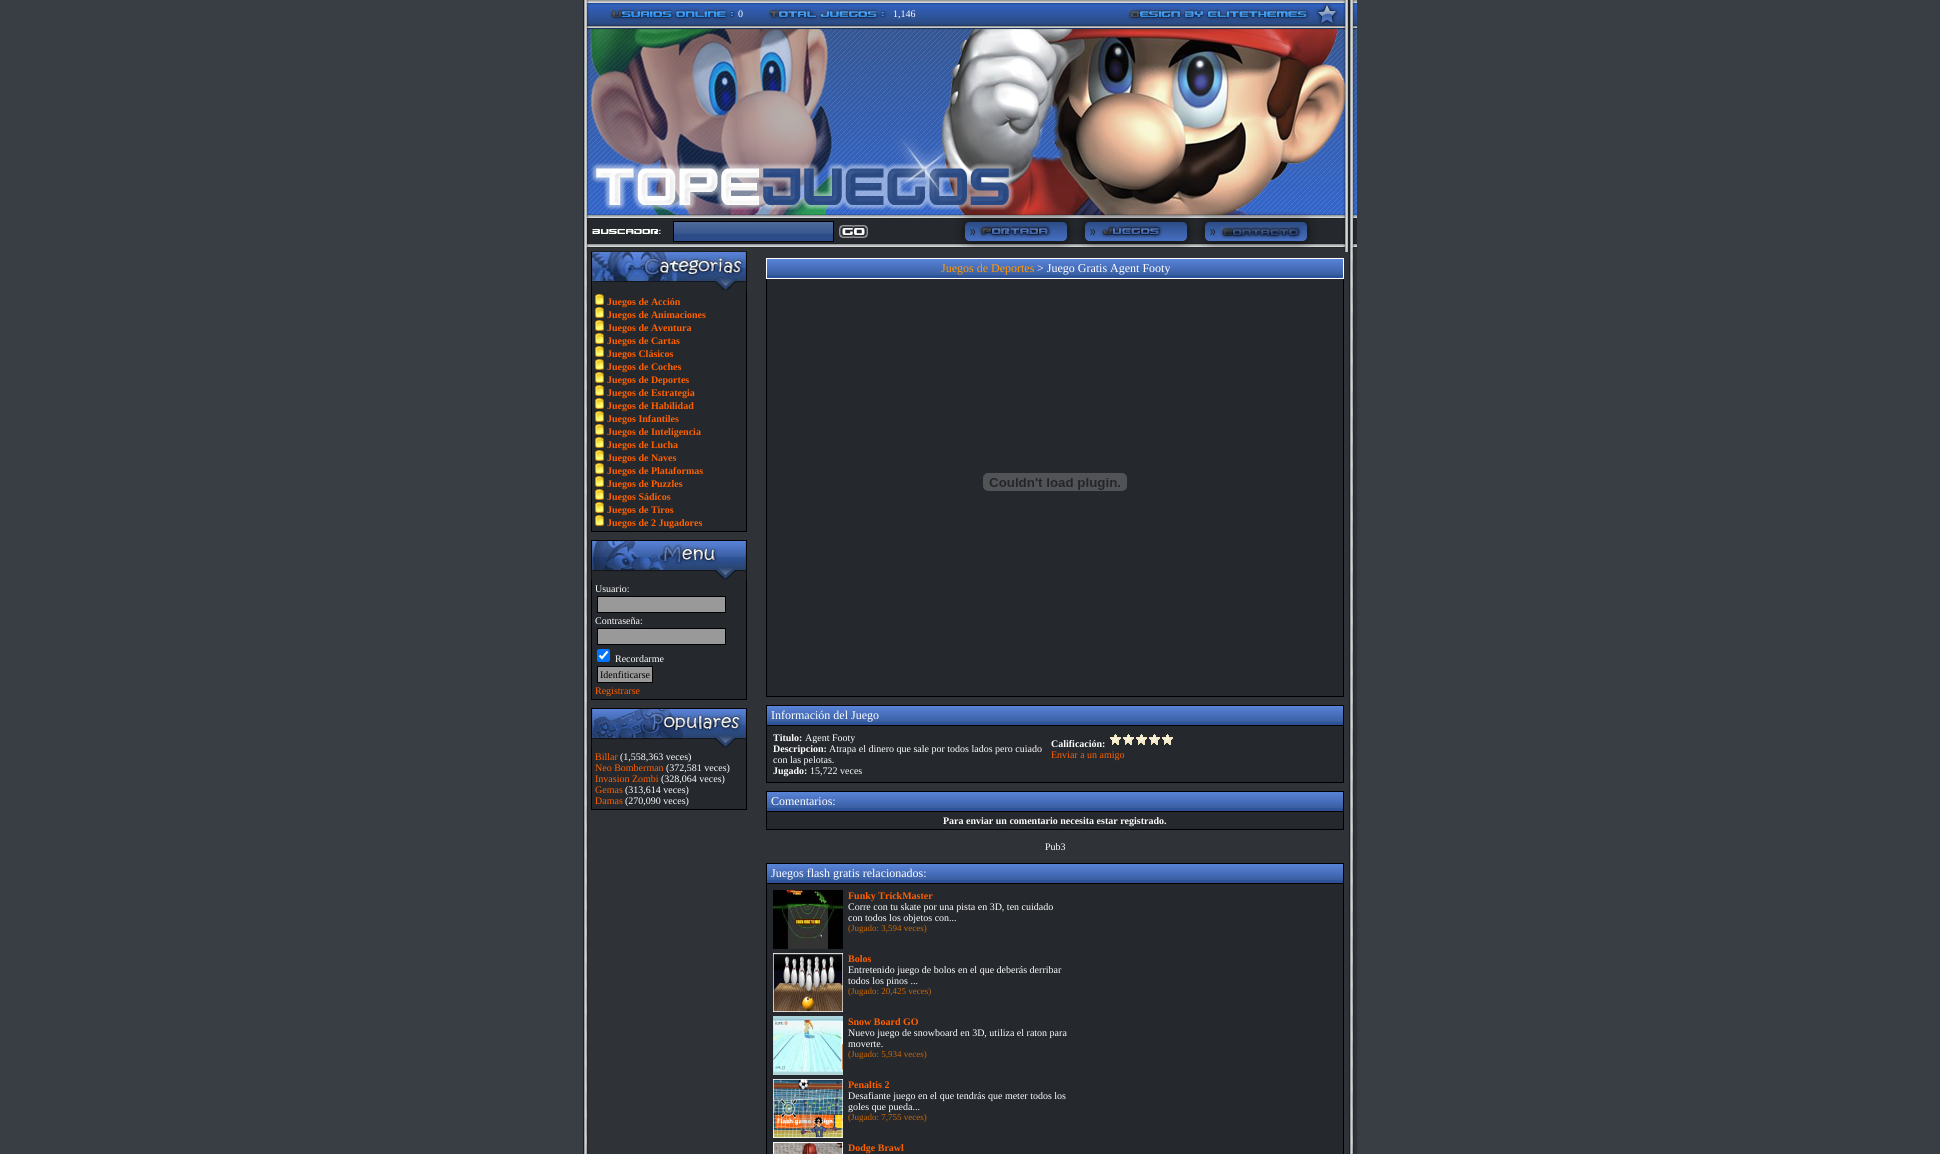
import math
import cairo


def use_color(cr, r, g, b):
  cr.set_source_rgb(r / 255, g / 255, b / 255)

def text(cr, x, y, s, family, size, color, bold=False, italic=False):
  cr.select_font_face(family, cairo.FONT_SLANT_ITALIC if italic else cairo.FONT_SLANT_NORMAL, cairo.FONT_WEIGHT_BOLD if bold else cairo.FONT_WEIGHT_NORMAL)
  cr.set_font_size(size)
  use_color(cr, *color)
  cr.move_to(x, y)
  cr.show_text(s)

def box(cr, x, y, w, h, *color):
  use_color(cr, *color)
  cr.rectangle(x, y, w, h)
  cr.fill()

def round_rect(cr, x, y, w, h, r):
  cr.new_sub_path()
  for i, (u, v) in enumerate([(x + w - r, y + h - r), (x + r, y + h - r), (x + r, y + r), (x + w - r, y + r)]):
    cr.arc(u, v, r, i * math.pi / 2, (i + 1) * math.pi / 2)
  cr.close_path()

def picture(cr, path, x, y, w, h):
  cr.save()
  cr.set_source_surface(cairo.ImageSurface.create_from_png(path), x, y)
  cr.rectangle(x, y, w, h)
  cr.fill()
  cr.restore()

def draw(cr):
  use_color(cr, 57, 62, 68)
  cr.paint()
  picture(cr, "img_01.png", 583, 0, 774, 1154)
  picture(cr, "img_02.png", 585, 0, 772, 27)
  picture(cr, "img_03.png", 585, 27, 772, 191)
  picture(cr, "img_04.png", 585, 218, 772, 30)
  picture(cr, "img_05.png", 591, 251, 156, 40)
  box(cr, 592, 291, 154, 240, 37, 40, 45)
  box(cr, 746, 291, 1, 241, 0, 0, 0)
  box(cr, 591, 531, 156, 1, 0, 0, 0)
  box(cr, 591, 291, 1, 241, 0, 0, 0)
  picture(cr, "img_06.png", 595, 294, 9, 11)
  picture(cr, "img_06.png", 595, 307, 9, 11)
  picture(cr, "img_06.png", 595, 320, 9, 11)
  picture(cr, "img_06.png", 595, 333, 9, 11)
  picture(cr, "img_06.png", 595, 346, 9, 11)
  picture(cr, "img_06.png", 595, 359, 9, 11)
  picture(cr, "img_06.png", 595, 372, 9, 11)
  picture(cr, "img_06.png", 595, 385, 9, 11)
  picture(cr, "img_06.png", 595, 398, 9, 11)
  picture(cr, "img_06.png", 595, 411, 9, 11)
  picture(cr, "img_06.png", 595, 424, 9, 11)
  picture(cr, "img_06.png", 595, 437, 9, 11)
  picture(cr, "img_06.png", 595, 450, 9, 11)
  picture(cr, "img_06.png", 595, 463, 9, 11)
  picture(cr, "img_06.png", 595, 476, 9, 11)
  picture(cr, "img_06.png", 595, 489, 9, 11)
  picture(cr, "img_06.png", 595, 502, 9, 11)
  picture(cr, "img_06.png", 595, 515, 9, 11)
  picture(cr, "img_07.png", 591, 540, 156, 40)
  box(cr, 592, 580, 154, 119, 37, 40, 45)
  box(cr, 746, 580, 1, 120, 0, 0, 0)
  box(cr, 591, 699, 156, 1, 0, 0, 0)
  box(cr, 591, 580, 1, 120, 0, 0, 0)
  use_color(cr, 153, 153, 153)
  cr.rectangle(597.5, 596.5, 128, 16)
  cr.fill_preserve()
  use_color(cr, 0, 0, 0)
  cr.set_line_width(1)
  cr.stroke()
  use_color(cr, 153, 153, 153)
  cr.rectangle(597.5, 628.5, 128, 16)
  cr.fill_preserve()
  use_color(cr, 0, 0, 0)
  cr.stroke()
  use_color(cr, 0, 117, 255)
  round_rect(cr, 597, 649, 13, 13, 2)
  cr.fill()
  cr.new_path()
  cr.move_to(599.5, 655.5)
  cr.line_to(602, 658)
  cr.line_to(607.5, 651.5)
  use_color(cr, 255, 255, 255)
  cr.set_line_width(2.1)
  cr.stroke()
  use_color(cr, 153, 153, 153)
  cr.rectangle(597.5, 666.5, 55, 16)
  cr.fill_preserve()
  use_color(cr, 0, 0, 0)
  cr.set_line_width(1)
  cr.stroke()
  picture(cr, "img_08.png", 591, 708, 156, 40)
  box(cr, 592, 748, 154, 61, 37, 40, 45)
  box(cr, 746, 748, 1, 62, 0, 0, 0)
  box(cr, 591, 809, 156, 1, 0, 0, 0)
  box(cr, 591, 748, 1, 62, 0, 0, 0)
  box(cr, 1343, 252, 6, 902, 47, 50, 55)
  picture(cr, "img_09.png", 767, 259, 576, 19)
  cr.rectangle(766.5, 258.5, 577, 20)
  use_color(cr, 255, 255, 255)
  cr.stroke()
  box(cr, 767, 279, 576, 417, 37, 40, 45)
  box(cr, 1343, 279, 1, 418, 0, 0, 0)
  box(cr, 766, 696, 578, 1, 0, 0, 0)
  box(cr, 766, 279, 1, 418, 0, 0, 0)
  picture(cr, "img_10.png", 983, 473, 144, 18)
  picture(cr, "img_09.png", 767, 706, 576, 19)
  cr.rectangle(766.5, 705.5, 577, 20)
  cr.stroke()
  box(cr, 767, 726, 576, 56, 37, 40, 45)
  box(cr, 1343, 726, 1, 57, 0, 0, 0)
  box(cr, 766, 782, 578, 1, 0, 0, 0)
  box(cr, 766, 726, 1, 57, 0, 0, 0)
  picture(cr, "img_11.png", 1110, 734, 63, 11)
  picture(cr, "img_09.png", 767, 792, 576, 19)
  cr.rectangle(766.5, 791.5, 577, 20)
  cr.stroke()
  box(cr, 767, 812, 576, 17, 37, 40, 45)
  box(cr, 1343, 812, 1, 18, 0, 0, 0)
  box(cr, 766, 829, 578, 1, 0, 0, 0)
  box(cr, 766, 812, 1, 18, 0, 0, 0)
  picture(cr, "img_09.png", 767, 864, 576, 19)
  cr.rectangle(766.5, 863.5, 577, 20)
  cr.stroke()
  box(cr, 767, 884, 576, 270, 37, 40, 45)
  box(cr, 1343, 884, 1, 270, 0, 0, 0)
  box(cr, 766, 884, 1, 270, 0, 0, 0)
  picture(cr, "img_12.png", 773, 890, 70, 59)
  picture(cr, "img_13.png", 773, 953, 70, 59)
  picture(cr, "img_14.png", 773, 1016, 70, 59)
  picture(cr, "img_15.png", 773, 1079, 70, 59)
  picture(cr, "img_16.png", 773, 1142, 70, 12)
  text(cr, 738, 17, "0", "Liberation Serif", 10, (255, 255, 255))
  text(cr, 893, 17, "1,146", "Liberation Serif", 10, (255, 255, 255))
  text(cr, 607, 305, "Juegos de Acción", "Liberation Serif", 10, (255, 96, 0), bold=True)
  text(cr, 607, 318, "Juegos de Animaciones", "Liberation Serif", 10, (255, 96, 0), bold=True)
  text(cr, 607, 331, "Juegos de Aventura", "Liberation Serif", 10, (255, 96, 0), bold=True)
  text(cr, 607, 344, "Juegos de Cartas", "Liberation Serif", 10, (255, 96, 0), bold=True)
  text(cr, 607, 357, "Juegos Clásicos", "Liberation Serif", 10, (255, 96, 0), bold=True)
  text(cr, 607, 370, "Juegos de Coches", "Liberation Serif", 10, (255, 96, 0), bold=True)
  text(cr, 607, 383, "Juegos de Deportes", "Liberation Serif", 10, (255, 96, 0), bold=True)
  text(cr, 607, 396, "Juegos de Estrategia", "Liberation Serif", 10, (255, 96, 0), bold=True)
  text(cr, 607, 409, "Juegos de Habilidad", "Liberation Serif", 10, (255, 96, 0), bold=True)
  text(cr, 607, 422, "Juegos Infantiles", "Liberation Serif", 10, (255, 96, 0), bold=True)
  text(cr, 607, 435, "Juegos de Inteligencia", "Liberation Serif", 10, (255, 96, 0), bold=True)
  text(cr, 607, 448, "Juegos de Lucha", "Liberation Serif", 10, (255, 96, 0), bold=True)
  text(cr, 607, 461, "Juegos de Naves", "Liberation Serif", 10, (255, 96, 0), bold=True)
  text(cr, 607, 474, "Juegos de Plataformas", "Liberation Serif", 10, (255, 96, 0), bold=True)
  text(cr, 607, 487, "Juegos de Puzzles", "Liberation Serif", 10, (255, 96, 0), bold=True)
  text(cr, 607, 500, "Juegos Sádicos", "Liberation Serif", 10, (255, 96, 0), bold=True)
  text(cr, 607, 513, "Juegos de Tiros", "Liberation Serif", 10, (255, 96, 0), bold=True)
  text(cr, 607, 526, "Juegos de 2 Jugadores", "Liberation Serif", 10, (255, 96, 0), bold=True)
  text(cr, 595, 592, "Usuario:", "Liberation Serif", 10, (255, 255, 255))
  text(cr, 595, 624, "Contraseña:", "Liberation Serif", 10, (255, 255, 255))
  text(cr, 615, 662, "Recordarme", "Liberation Serif", 10, (255, 255, 255))
  text(cr, 600, 678, "Idenfiticarse", "Liberation Serif", 10, (0, 0, 0))
  text(cr, 595, 694, "Registrarse", "Liberation Serif", 10, (255, 96, 0))
  text(cr, 595, 760, "Billar", "Liberation Serif", 10, (255, 96, 0))
  text(cr, 620, 760, "(1,558,363 veces)", "Liberation Serif", 10, (255, 255, 255))
  text(cr, 595, 771, "Neo Bomberman", "Liberation Serif", 10, (255, 96, 0))
  text(cr, 666, 771, "(372,581 veces)", "Liberation Serif", 10, (255, 255, 255))
  text(cr, 595, 782, "Invasion Zombi", "Liberation Serif", 10, (255, 96, 0))
  text(cr, 661, 782, "(328,064 veces)", "Liberation Serif", 10, (255, 255, 255))
  text(cr, 595, 793, "Gemas", "Liberation Serif", 10, (255, 96, 0))
  text(cr, 625, 793, "(313,614 veces)", "Liberation Serif", 10, (255, 255, 255))
  text(cr, 595, 804, "Damas", "Liberation Serif", 10, (255, 96, 0))
  text(cr, 625, 804, "(270,090 veces)", "Liberation Serif", 10, (255, 255, 255))
  text(cr, 941, 272, "Juegos de Deportes", "Liberation Serif", 12, (255, 153, 0))
  text(cr, 1037, 272, "> Juego Gratis Agent Footy", "Liberation Serif", 12, (255, 255, 255))
  text(cr, 771, 719, "Información del Juego", "Liberation Serif", 12, (255, 255, 255))
  text(cr, 773, 741, "Titulo:", "Liberation Serif", 10, (255, 255, 255), bold=True)
  text(cr, 805, 741, "Agent Footy", "Liberation Serif", 10, (255, 255, 255))
  text(cr, 773, 752, "Descripcion:", "Liberation Serif", 10, (255, 255, 255), bold=True)
  text(cr, 829, 752, "Atrapa el dinero que sale por todos lados pero cuiado", "Liberation Serif", 10, (255, 255, 255))
  text(cr, 773, 763, "con las pelotas.", "Liberation Serif", 10, (255, 255, 255))
  text(cr, 773, 774, "Jugado:", "Liberation Serif", 10, (255, 255, 255), bold=True)
  text(cr, 810, 774, "15,722 veces", "Liberation Serif", 10, (255, 255, 255))
  text(cr, 1051, 747, "Calificación:", "Liberation Serif", 10, (255, 255, 255), bold=True)
  text(cr, 1051, 758, "Enviar a un amigo", "Liberation Serif", 10, (255, 96, 0))
  text(cr, 771, 805, "Comentarios:", "Liberation Serif", 12, (255, 255, 255))
  text(cr, 943, 824, "Para enviar un comentario necesita estar registrado.", "Liberation Serif", 10, (255, 255, 255), bold=True)
  text(cr, 1045, 850, "Pub3", "Liberation Serif", 10, (255, 255, 255))
  text(cr, 771, 877, "Juegos flash gratis relacionados:", "Liberation Serif", 12, (255, 255, 255))
  text(cr, 848, 899, "Funky TrickMaster", "Liberation Serif", 10, (255, 96, 0), bold=True)
  text(cr, 848, 910, "Corre con tu skate por una pista en 3D, ten cuidado", "Liberation Serif", 10, (255, 255, 255))
  text(cr, 848, 921, "con todos los objetos con...", "Liberation Serif", 10, (255, 255, 255))
  text(cr, 848, 931, "(Jugado: 3,594 veces)", "Liberation Serif", 9, (204, 102, 0))
  text(cr, 848, 962, "Bolos", "Liberation Serif", 10, (255, 96, 0), bold=True)
  text(cr, 848, 973, "Entretenido juego de bolos en el que deberás derribar", "Liberation Serif", 10, (255, 255, 255))
  text(cr, 848, 984, "todos los pinos ...", "Liberation Serif", 10, (255, 255, 255))
  text(cr, 848, 994, "(Jugado: 20,425 veces)", "Liberation Serif", 9, (204, 102, 0))
  text(cr, 848, 1025, "Snow Board GO", "Liberation Serif", 10, (255, 96, 0), bold=True)
  text(cr, 848, 1036, "Nuevo juego de snowboard en 3D, utiliza el raton para", "Liberation Serif", 10, (255, 255, 255))
  text(cr, 848, 1047, "moverte.", "Liberation Serif", 10, (255, 255, 255))
  text(cr, 848, 1057, "(Jugado: 5,934 veces)", "Liberation Serif", 9, (204, 102, 0))
  text(cr, 848, 1088, "Penaltis 2", "Liberation Serif", 10, (255, 96, 0), bold=True)
  text(cr, 848, 1099, "Desafiante juego en el que tendrás que meter todos los", "Liberation Serif", 10, (255, 255, 255))
  text(cr, 848, 1110, "goles que pueda...", "Liberation Serif", 10, (255, 255, 255))
  text(cr, 848, 1120, "(Jugado: 7,755 veces)", "Liberation Serif", 9, (204, 102, 0))
  text(cr, 848, 1151, "Dodge Brawl", "Liberation Serif", 10, (255, 96, 0), bold=True)


surface = cairo.ImageSurface(cairo.FORMAT_RGB24, 1940, 1154)
cr = cairo.Context(surface)
options = cairo.FontOptions()
options.set_hint_metrics(cairo.HINT_METRICS_OFF)
options.set_hint_style(cairo.HINT_STYLE_NONE)
cr.set_font_options(options)
cr.set_miter_limit(4)
draw(cr)
surface.write_to_png("out.png")
